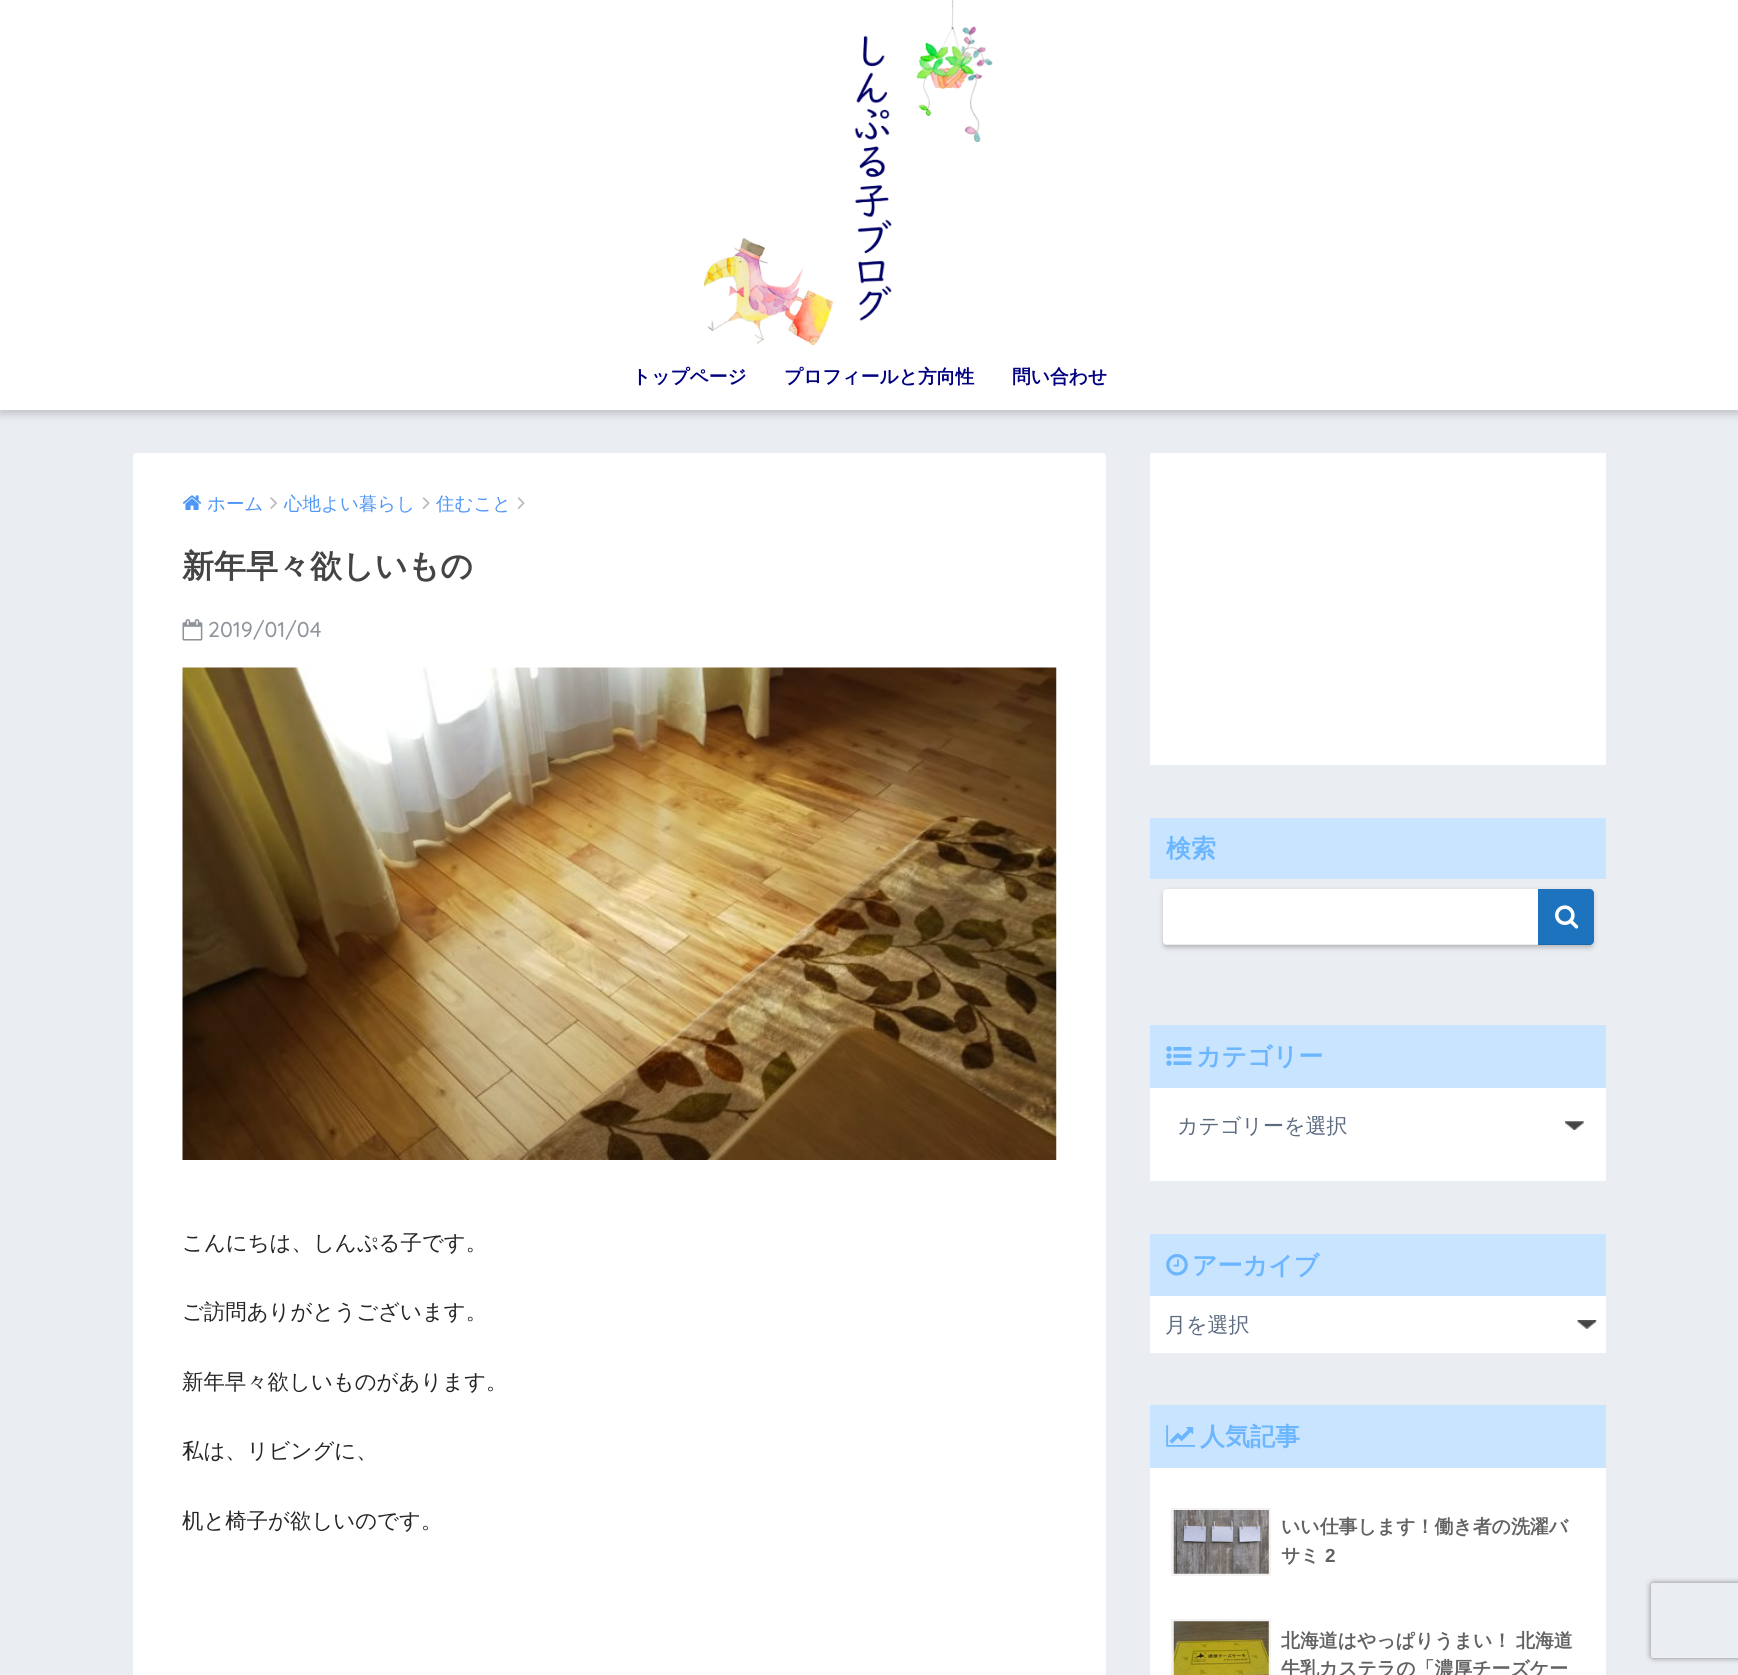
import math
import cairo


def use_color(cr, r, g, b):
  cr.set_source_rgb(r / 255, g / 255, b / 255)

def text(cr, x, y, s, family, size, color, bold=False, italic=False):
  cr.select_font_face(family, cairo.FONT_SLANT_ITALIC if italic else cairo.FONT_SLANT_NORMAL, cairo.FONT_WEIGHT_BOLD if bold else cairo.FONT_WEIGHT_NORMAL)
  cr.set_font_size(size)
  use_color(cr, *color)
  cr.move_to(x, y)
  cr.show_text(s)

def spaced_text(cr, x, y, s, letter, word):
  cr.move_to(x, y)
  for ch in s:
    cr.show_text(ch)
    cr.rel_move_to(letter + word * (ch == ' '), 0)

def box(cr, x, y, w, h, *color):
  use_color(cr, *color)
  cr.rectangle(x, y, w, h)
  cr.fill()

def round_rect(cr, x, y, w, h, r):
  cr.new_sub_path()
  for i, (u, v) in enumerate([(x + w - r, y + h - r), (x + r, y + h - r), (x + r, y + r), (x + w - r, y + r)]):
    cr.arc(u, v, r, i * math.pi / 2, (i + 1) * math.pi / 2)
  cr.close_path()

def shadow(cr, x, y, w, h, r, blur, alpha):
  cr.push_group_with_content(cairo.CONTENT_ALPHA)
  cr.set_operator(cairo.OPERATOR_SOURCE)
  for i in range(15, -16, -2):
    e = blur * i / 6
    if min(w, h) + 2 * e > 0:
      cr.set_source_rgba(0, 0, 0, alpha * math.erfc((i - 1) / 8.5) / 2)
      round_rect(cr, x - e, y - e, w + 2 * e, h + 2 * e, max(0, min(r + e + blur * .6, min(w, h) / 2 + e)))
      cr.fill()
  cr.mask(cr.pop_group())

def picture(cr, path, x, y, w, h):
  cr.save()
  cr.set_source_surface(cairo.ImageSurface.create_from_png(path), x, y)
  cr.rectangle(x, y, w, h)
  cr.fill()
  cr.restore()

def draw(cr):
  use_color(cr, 234, 237, 242)
  cr.paint()
  use_color(cr, 0, 0, 0)
  shadow(cr, 0, 4, 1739, 410, 0, 4, 0.18)
  box(cr, 0, 0, 1738, 410, 255, 255, 255)
  picture(cr, "img_01.png", 703, 0, 290, 346)
  round_rect(cr, 133, 453, 973, 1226, 4)
  cr.fill()
  picture(cr, "img_02.png", 182, 495, 20, 15)
  picture(cr, "img_03.png", 270, 497, 7, 12)
  picture(cr, "img_04.png", 422, 497, 8, 12)
  picture(cr, "img_04.png", 517, 497, 8, 12)
  picture(cr, "img_05.png", 182, 619, 21, 22)
  picture(cr, "img_06.png", 182, 667, 875, 493)
  box(cr, 1150, 453, 456, 312, 255, 255, 255)
  box(cr, 1150, 818, 456, 61, 200, 228, 255)
  use_color(cr, 0, 0, 0)
  shadow(cr, 1165, 895, 426, 51, 1, 2, 0.15)
  shadow(cr, 1163, 891, 431, 57, 4, 3, 0.15)
  use_color(cr, 255, 255, 255)
  round_rect(cr, 1163, 889, 431, 56, 4)
  cr.fill()
  box(cr, 1165, 944, 428, 1, 239, 239, 239)
  use_color(cr, 30, 115, 190)
  cr.new_path()
  cr.move_to(1538, 889)
  cr.line_to(1590, 889)
  cr.curve_to(1592, 889, 1594, 891, 1594, 893)
  cr.line_to(1594, 941)
  cr.curve_to(1594, 943, 1592, 945, 1590, 945)
  cr.line_to(1538, 945)
  cr.close_path()
  cr.fill()
  cr.set_source_rgba(0, 0, 0, 0.1)
  cr.rectangle(1538, 944, 55, 1)
  cr.fill()
  picture(cr, "img_07.png", 1555, 905, 24, 24)
  box(cr, 1150, 1088, 456, 93, 255, 255, 255)
  box(cr, 1150, 1025, 456, 63, 200, 228, 255)
  picture(cr, "img_08.png", 1166, 1046, 26, 20)
  picture(cr, "img_09.png", 1565, 1121, 19, 9)
  box(cr, 1150, 1296, 456, 57, 255, 255, 255)
  box(cr, 1150, 1234, 456, 62, 200, 228, 255)
  picture(cr, "img_10.png", 1166, 1254, 22, 22)
  picture(cr, "img_11.png", 1577, 1320, 20, 9)
  box(cr, 1150, 1468, 456, 207, 255, 255, 255)
  box(cr, 1150, 1405, 456, 63, 200, 228, 255)
  picture(cr, "img_12.png", 1166, 1425, 29, 22)
  cr.rectangle(1172.5, 1509.5, 97, 65)
  use_color(cr, 243, 243, 243)
  cr.set_line_width(3)
  cr.stroke()
  picture(cr, "img_13.png", 1173, 1510, 96, 64)
  cr.rectangle(1172.5, 1620.5, 97, 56)
  cr.stroke()
  picture(cr, "img_14.png", 1173, 1621, 96, 54)
  cr.save()
  cr.set_fill_rule(cairo.FILL_RULE_EVEN_ODD)
  cr.new_path()
  cr.move_to(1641, 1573)
  cr.line_to(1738, 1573)
  cr.line_to(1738, 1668)
  cr.line_to(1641, 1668)
  cr.close_path()
  cr.move_to(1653.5, 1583)
  cr.line_to(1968.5, 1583)
  cr.curve_to(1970, 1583, 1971, 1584, 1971, 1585.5)
  cr.line_to(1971, 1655.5)
  cr.curve_to(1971, 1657, 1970, 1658, 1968.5, 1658)
  cr.line_to(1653.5, 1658)
  cr.curve_to(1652, 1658, 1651, 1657, 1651, 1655.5)
  cr.line_to(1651, 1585.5)
  cr.curve_to(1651, 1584, 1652, 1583, 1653.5, 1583)
  cr.close_path()
  cr.clip()
  use_color(cr, 128, 128, 128)
  shadow(cr, 1651, 1583, 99, 75, 2.5, 3, 1)
  cr.restore()
  text(cr, 632, 383, "トップページ", "WenQuanYi Zen Hei", 18.75, (0, 0, 128), bold=True)
  text(cr, 784, 383, "プロフィールと方向性", "WenQuanYi Zen Hei", 18.75, (0, 0, 128), bold=True)
  text(cr, 1012, 383, "問い合わせ", "WenQuanYi Zen Hei", 18.75, (0, 0, 128), bold=True)
  text(cr, 207, 510, "ホーム", "WenQuanYi Zen Hei Medium", 18.5, (79, 150, 246))
  text(cr, 284, 510, "心地よい暮らし", "WenQuanYi Zen Hei Medium", 18.5, (79, 150, 246))
  text(cr, 436, 510, "住むこと", "WenQuanYi Zen Hei Medium", 18.5, (79, 150, 246))
  text(cr, 182, 577, "新年早々欲しいもの", "WenQuanYi Zen Hei", 32, (68, 68, 68), bold=True)
  text(cr, 208, 637, "2019/01/04", "Quicksand Medium", 21.4, (142, 148, 154))
  text(cr, 182, 1250, "こんにちは、しんぷる子です。", "WenQuanYi Zen Hei Medium", 21.4, (37, 37, 37))
  text(cr, 182, 1319, "ご訪問ありがとうございます。", "WenQuanYi Zen Hei Medium", 21.4, (37, 37, 37))
  text(cr, 182, 1389, "新年早々欲しいものがあります。", "WenQuanYi Zen Hei Medium", 21.4, (37, 37, 37))
  text(cr, 182, 1458, "私は、リビングに、", "WenQuanYi Zen Hei Medium", 21.4, (37, 37, 37))
  text(cr, 182, 1528, "机と椅子が欲しいのです。", "WenQuanYi Zen Hei Medium", 21.4, (37, 37, 37))
  text(cr, 1166, 857, "検索", "WenQuanYi Zen Hei", 25, (107, 182, 255), bold=True)
  text(cr, 1196, 1065, "カテゴリー", "WenQuanYi Zen Hei", 25, (107, 182, 255), bold=True)
  text(cr, 1177, 1133, "カテゴリーを選択", "WenQuanYi Zen Hei Medium", 21, (92, 107, 128))
  text(cr, 1192, 1274, "アーカイブ", "WenQuanYi Zen Hei", 25, (107, 182, 255), bold=True)
  text(cr, 1165, 1332, "月を選択", "WenQuanYi Zen Hei Medium", 21, (92, 107, 128))
  text(cr, 1200, 1445, "人気記事", "WenQuanYi Zen Hei", 25, (107, 182, 255), bold=True)
  text(cr, 1281, 1533, "いい仕事します！働き者の洗濯バ", "WenQuanYi Zen Hei", 18.9, (98, 98, 98), bold=True)
  text(cr, 1281, 1562, "サミ", "WenQuanYi Zen Hei", 18.9, (98, 98, 98), bold=True)
  text(cr, 1325, 1562, "2", "Liberation Sans", 18.9, (98, 98, 98), bold=True)
  cr.select_font_face("WenQuanYi Zen Hei", cairo.FONT_SLANT_NORMAL, cairo.FONT_WEIGHT_BOLD)
  spaced_text(cr, 1281, 1647, "北海道はやっぱりうまい！ 北海道", 0, -1)
  text(cr, 1281, 1675, "牛乳カステラの「濃厚チーズケー", "WenQuanYi Zen Hei", 18.9, (98, 98, 98), bold=True)


surface = cairo.ImageSurface(cairo.FORMAT_RGB24, 1738, 1675)
cr = cairo.Context(surface)
options = cairo.FontOptions()
options.set_hint_metrics(cairo.HINT_METRICS_OFF)
options.set_hint_style(cairo.HINT_STYLE_NONE)
cr.set_font_options(options)
cr.set_miter_limit(4)
draw(cr)
surface.write_to_png("out.png")
